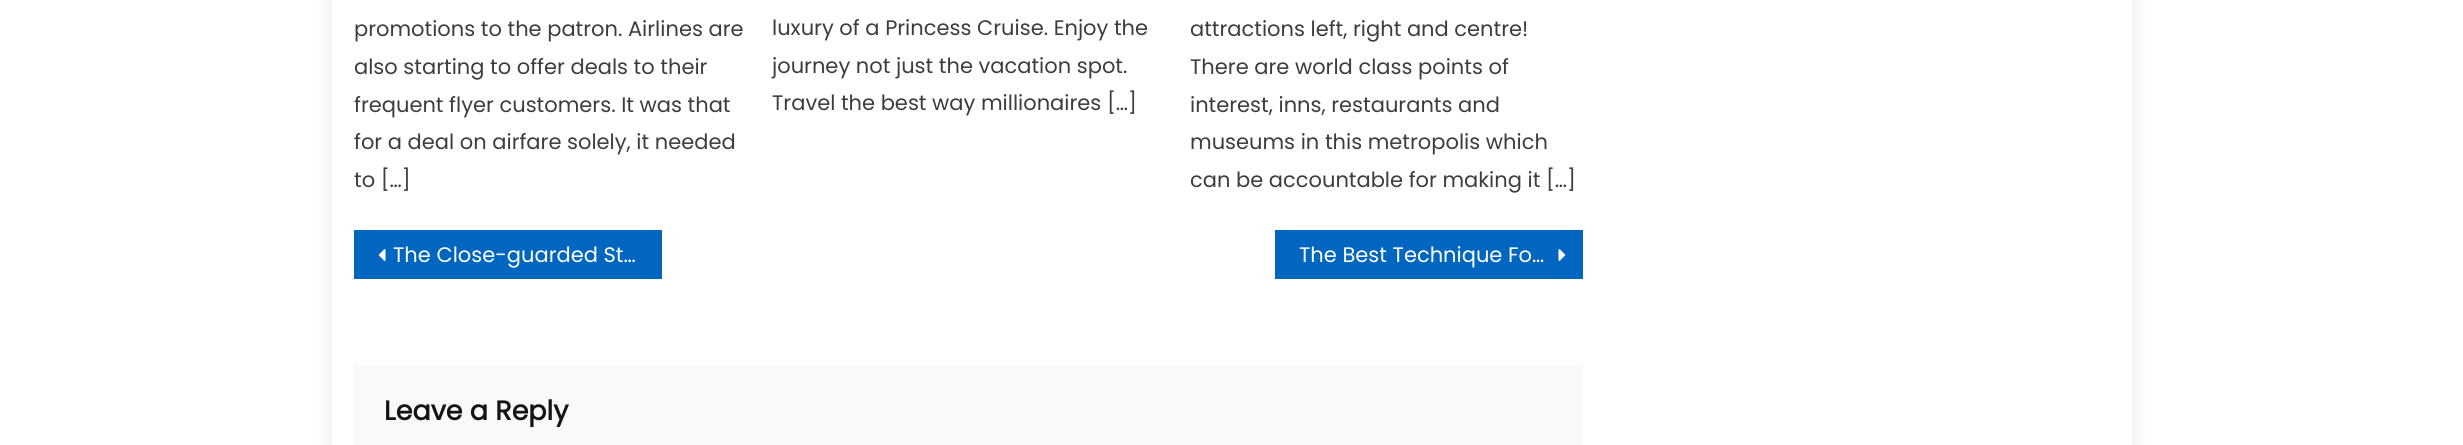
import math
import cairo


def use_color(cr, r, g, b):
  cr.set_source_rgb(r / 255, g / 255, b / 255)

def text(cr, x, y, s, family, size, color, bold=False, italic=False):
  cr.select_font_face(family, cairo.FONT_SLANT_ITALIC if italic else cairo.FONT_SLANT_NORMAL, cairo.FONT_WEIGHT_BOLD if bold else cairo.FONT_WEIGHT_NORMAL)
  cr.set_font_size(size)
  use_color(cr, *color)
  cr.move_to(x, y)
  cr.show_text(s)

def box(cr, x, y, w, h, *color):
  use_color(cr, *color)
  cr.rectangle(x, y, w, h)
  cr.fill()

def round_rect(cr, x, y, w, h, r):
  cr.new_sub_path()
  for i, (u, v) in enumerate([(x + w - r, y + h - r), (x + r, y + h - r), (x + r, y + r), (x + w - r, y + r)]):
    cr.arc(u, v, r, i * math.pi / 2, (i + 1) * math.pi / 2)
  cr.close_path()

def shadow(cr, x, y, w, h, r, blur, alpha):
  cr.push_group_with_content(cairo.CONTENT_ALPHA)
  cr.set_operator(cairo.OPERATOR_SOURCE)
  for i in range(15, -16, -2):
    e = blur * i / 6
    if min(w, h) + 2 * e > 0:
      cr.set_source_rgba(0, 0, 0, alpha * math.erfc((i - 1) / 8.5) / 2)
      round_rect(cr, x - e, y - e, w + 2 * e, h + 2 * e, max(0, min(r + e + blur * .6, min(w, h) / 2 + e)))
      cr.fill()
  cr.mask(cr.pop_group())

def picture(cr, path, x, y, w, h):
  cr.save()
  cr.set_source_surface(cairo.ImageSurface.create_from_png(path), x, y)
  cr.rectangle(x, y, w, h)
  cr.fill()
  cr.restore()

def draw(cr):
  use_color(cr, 255, 255, 255)
  cr.paint()
  use_color(cr, 0, 0, 0)
  shadow(cr, 332, -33, 1800, 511, 0, 11, 0.1)
  box(cr, 332, 0, 1800, 445, 255, 255, 255)
  box(cr, 354, 230, 308, 49, 1, 102, 191)
  picture(cr, "img_01.png", 378, 249, 8, 12)
  box(cr, 1275, 230, 308, 49, 1, 102, 191)
  picture(cr, "img_02.png", 1558, 249, 8, 12)
  box(cr, 354, 365, 1229, 80, 249, 249, 249)
  text(cr, 354, 36, "promotions to the patron. Airlines are", "Poppins", 21, (61, 61, 61))
  text(cr, 354, 74, "also starting to offer deals to their", "Poppins", 21, (61, 61, 61))
  text(cr, 354, 112, "frequent flyer customers. It was that", "Poppins", 21, (61, 61, 61))
  text(cr, 354, 149, "for a deal on airfare solely, it needed", "Poppins", 21, (61, 61, 61))
  text(cr, 354, 187, "to […]", "Poppins", 21, (61, 61, 61))
  text(cr, 772, 35, "luxury of a Princess Cruise. Enjoy the", "Poppins", 21, (61, 61, 61))
  text(cr, 772, 73, "journey not just the vacation spot.", "Poppins", 21, (61, 61, 61))
  text(cr, 772, 110, "Travel the best way millionaires […]", "Poppins", 21, (61, 61, 61))
  text(cr, 1190, 36, "attractions left, right and centre!", "Poppins", 21, (61, 61, 61))
  text(cr, 1190, 74, "There are world class points of", "Poppins", 21, (61, 61, 61))
  text(cr, 1190, 112, "interest, inns, restaurants and", "Poppins", 21, (61, 61, 61))
  text(cr, 1190, 149, "museums in this metropolis which", "Poppins", 21, (61, 61, 61))
  text(cr, 1190, 187, "can be accountable for making it […]", "Poppins", 21, (61, 61, 61))
  text(cr, 393, 262, "The Close-guarded St…", "Poppins", 21, (255, 255, 255))
  text(cr, 1299, 262, "The Best Technique Fo…", "Poppins", 21, (255, 255, 255))
  text(cr, 384, 420, "Leave a Reply", "Poppins", 27, (20, 20, 20), bold=True)


surface = cairo.ImageSurface(cairo.FORMAT_RGB24, 2463, 445)
cr = cairo.Context(surface)
options = cairo.FontOptions()
options.set_hint_metrics(cairo.HINT_METRICS_OFF)
options.set_hint_style(cairo.HINT_STYLE_NONE)
cr.set_font_options(options)
cr.set_miter_limit(4)
draw(cr)
surface.write_to_png("out.png")
